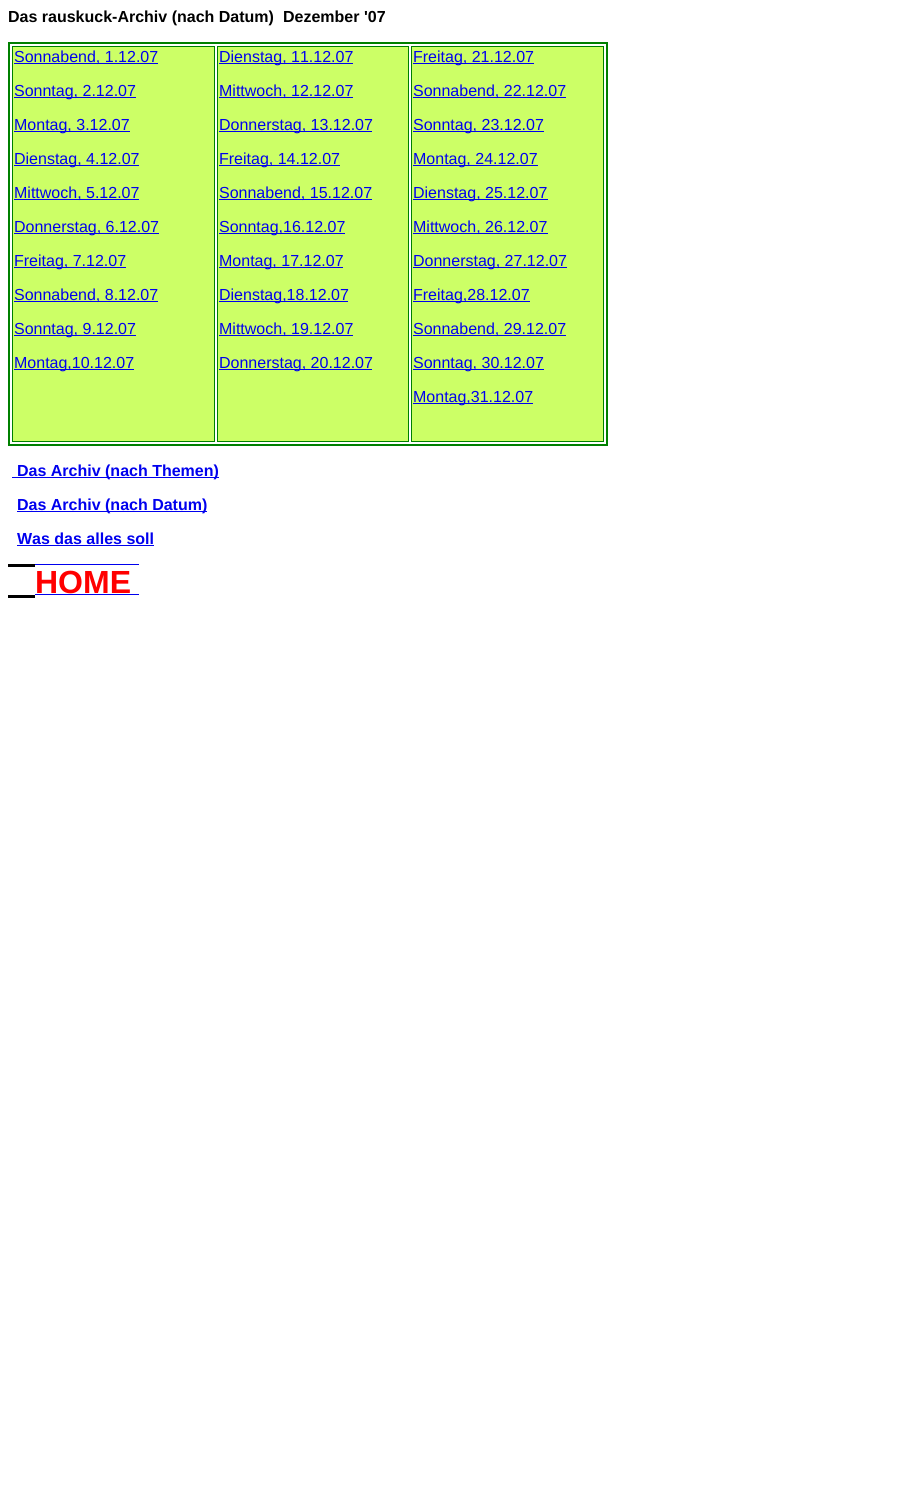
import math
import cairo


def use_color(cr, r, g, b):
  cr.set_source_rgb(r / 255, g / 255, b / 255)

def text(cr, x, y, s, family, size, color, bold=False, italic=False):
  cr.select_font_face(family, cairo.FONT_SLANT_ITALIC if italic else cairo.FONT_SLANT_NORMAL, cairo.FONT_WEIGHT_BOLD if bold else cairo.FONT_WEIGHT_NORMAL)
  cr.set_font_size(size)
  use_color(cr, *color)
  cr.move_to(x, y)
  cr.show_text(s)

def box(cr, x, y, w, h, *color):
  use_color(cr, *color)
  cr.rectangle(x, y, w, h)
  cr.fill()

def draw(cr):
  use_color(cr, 255, 255, 255)
  cr.paint()
  cr.rectangle(9, 43, 598, 402)
  use_color(cr, 0, 128, 0)
  cr.stroke()
  use_color(cr, 204, 255, 102)
  cr.rectangle(12.5, 46.5, 202, 395)
  cr.fill_preserve()
  use_color(cr, 0, 128, 0)
  cr.set_line_width(1)
  cr.stroke()
  box(cr, 14, 63, 144, 1, 0, 0, 238)
  box(cr, 14, 97, 122, 1, 0, 0, 238)
  box(cr, 14, 131, 116, 1, 0, 0, 238)
  box(cr, 14, 165, 125, 1, 0, 0, 238)
  box(cr, 14, 199, 125, 1, 0, 0, 238)
  box(cr, 14, 233, 145, 1, 0, 0, 238)
  box(cr, 14, 267, 112, 1, 0, 0, 238)
  box(cr, 14, 301, 144, 1, 0, 0, 238)
  box(cr, 14, 335, 122, 1, 0, 0, 238)
  box(cr, 14, 369, 120, 1, 0, 0, 238)
  use_color(cr, 204, 255, 102)
  cr.rectangle(217.5, 46.5, 191, 395)
  cr.fill_preserve()
  use_color(cr, 0, 128, 0)
  cr.stroke()
  box(cr, 219, 63, 134, 1, 0, 0, 238)
  box(cr, 219, 97, 134, 1, 0, 0, 238)
  box(cr, 219, 131, 153, 1, 0, 0, 238)
  box(cr, 219, 165, 121, 1, 0, 0, 238)
  box(cr, 219, 199, 153, 1, 0, 0, 238)
  box(cr, 219, 233, 126, 1, 0, 0, 238)
  box(cr, 219, 267, 124, 1, 0, 0, 238)
  box(cr, 219, 301, 129, 1, 0, 0, 238)
  box(cr, 219, 335, 134, 1, 0, 0, 238)
  box(cr, 219, 369, 153, 1, 0, 0, 238)
  use_color(cr, 204, 255, 102)
  cr.rectangle(411.5, 46.5, 192, 395)
  cr.fill_preserve()
  use_color(cr, 0, 128, 0)
  cr.stroke()
  box(cr, 413, 63, 121, 1, 0, 0, 238)
  box(cr, 413, 97, 153, 1, 0, 0, 238)
  box(cr, 413, 131, 131, 1, 0, 0, 238)
  box(cr, 413, 165, 125, 1, 0, 0, 238)
  box(cr, 413, 199, 135, 1, 0, 0, 238)
  box(cr, 413, 233, 135, 1, 0, 0, 238)
  box(cr, 413, 267, 154, 1, 0, 0, 238)
  box(cr, 413, 301, 117, 1, 0, 0, 238)
  box(cr, 413, 335, 153, 1, 0, 0, 238)
  box(cr, 413, 369, 131, 1, 0, 0, 238)
  box(cr, 413, 403, 120, 1, 0, 0, 238)
  box(cr, 12, 477, 207, 1, 0, 0, 238)
  box(cr, 17, 511, 190, 1, 0, 0, 238)
  box(cr, 17, 545, 137, 1, 0, 0, 238)
  box(cr, 8, 564, 27, 3, 0, 0, 0)
  box(cr, 8, 595, 27, 3, 0, 0, 0)
  box(cr, 35, 594, 104, 1, 0, 0, 238)
  box(cr, 35, 564, 104, 1, 0, 0, 238)
  text(cr, 8, 22, "Das rauskuck-Archiv (nach Datum)", "Liberation Sans", 16, (0, 0, 0), bold=True)
  text(cr, 283, 22, "Dezember '07", "Liberation Sans", 16, (0, 0, 0), bold=True)
  text(cr, 14, 62, "Sonnabend, 1.12.07", "Liberation Sans", 16, (0, 0, 238))
  text(cr, 14, 96, "Sonntag, 2.12.07", "Liberation Sans", 16, (0, 0, 238))
  text(cr, 14, 130, "Montag, 3.12.07", "Liberation Sans", 16, (0, 0, 238))
  text(cr, 14, 164, "Dienstag, 4.12.07", "Liberation Sans", 16, (0, 0, 238))
  text(cr, 14, 198, "Mittwoch, 5.12.07", "Liberation Sans", 16, (0, 0, 238))
  text(cr, 14, 232, "Donnerstag, 6.12.07", "Liberation Sans", 16, (0, 0, 238))
  text(cr, 14, 266, "Freitag, 7.12.07", "Liberation Sans", 16, (0, 0, 238))
  text(cr, 14, 300, "Sonnabend, 8.12.07", "Liberation Sans", 16, (0, 0, 238))
  text(cr, 14, 334, "Sonntag, 9.12.07", "Liberation Sans", 16, (0, 0, 238))
  text(cr, 14, 368, "Montag,10.12.07", "Liberation Sans", 16, (0, 0, 238))
  text(cr, 219, 62, "Dienstag, 11.12.07", "Liberation Sans", 16, (0, 0, 238))
  text(cr, 219, 96, "Mittwoch, 12.12.07", "Liberation Sans", 16, (0, 0, 238))
  text(cr, 219, 130, "Donnerstag, 13.12.07", "Liberation Sans", 16, (0, 0, 238))
  text(cr, 219, 164, "Freitag, 14.12.07", "Liberation Sans", 16, (0, 0, 238))
  text(cr, 219, 198, "Sonnabend, 15.12.07", "Liberation Sans", 16, (0, 0, 238))
  text(cr, 219, 232, "Sonntag,16.12.07", "Liberation Sans", 16, (0, 0, 238))
  text(cr, 219, 266, "Montag, 17.12.07", "Liberation Sans", 16, (0, 0, 238))
  text(cr, 219, 300, "Dienstag,18.12.07", "Liberation Sans", 16, (0, 0, 238))
  text(cr, 219, 334, "Mittwoch, 19.12.07", "Liberation Sans", 16, (0, 0, 238))
  text(cr, 219, 368, "Donnerstag, 20.12.07", "Liberation Sans", 16, (0, 0, 238))
  text(cr, 413, 62, "Freitag, 21.12.07", "Liberation Sans", 16, (0, 0, 238))
  text(cr, 413, 96, "Sonnabend, 22.12.07", "Liberation Sans", 16, (0, 0, 238))
  text(cr, 413, 130, "Sonntag, 23.12.07", "Liberation Sans", 16, (0, 0, 238))
  text(cr, 413, 164, "Montag, 24.12.07", "Liberation Sans", 16, (0, 0, 238))
  text(cr, 413, 198, "Dienstag, 25.12.07", "Liberation Sans", 16, (0, 0, 238))
  text(cr, 413, 232, "Mittwoch, 26.12.07", "Liberation Sans", 16, (0, 0, 238))
  text(cr, 413, 266, "Donnerstag, 27.12.07", "Liberation Sans", 16, (0, 0, 238))
  text(cr, 413, 300, "Freitag,28.12.07", "Liberation Sans", 16, (0, 0, 238))
  text(cr, 413, 334, "Sonnabend, 29.12.07", "Liberation Sans", 16, (0, 0, 238))
  text(cr, 413, 368, "Sonntag, 30.12.07", "Liberation Sans", 16, (0, 0, 238))
  text(cr, 413, 402, "Montag,31.12.07", "Liberation Sans", 16, (0, 0, 238))
  text(cr, 17, 476, "Das Archiv (nach Themen)", "Liberation Sans", 16, (0, 0, 238), bold=True)
  text(cr, 17, 510, "Das Archiv (nach Datum)", "Liberation Sans", 16, (0, 0, 238), bold=True)
  text(cr, 17, 544, "Was das alles soll", "Liberation Sans", 16, (0, 0, 238), bold=True)
  text(cr, 35, 593, "HOME", "Liberation Sans", 32, (255, 0, 0), bold=True)


surface = cairo.ImageSurface(cairo.FORMAT_RGB24, 908, 1511)
cr = cairo.Context(surface)
options = cairo.FontOptions()
options.set_hint_metrics(cairo.HINT_METRICS_OFF)
options.set_hint_style(cairo.HINT_STYLE_NONE)
cr.set_font_options(options)
cr.set_miter_limit(4)
draw(cr)
surface.write_to_png("out.png")
